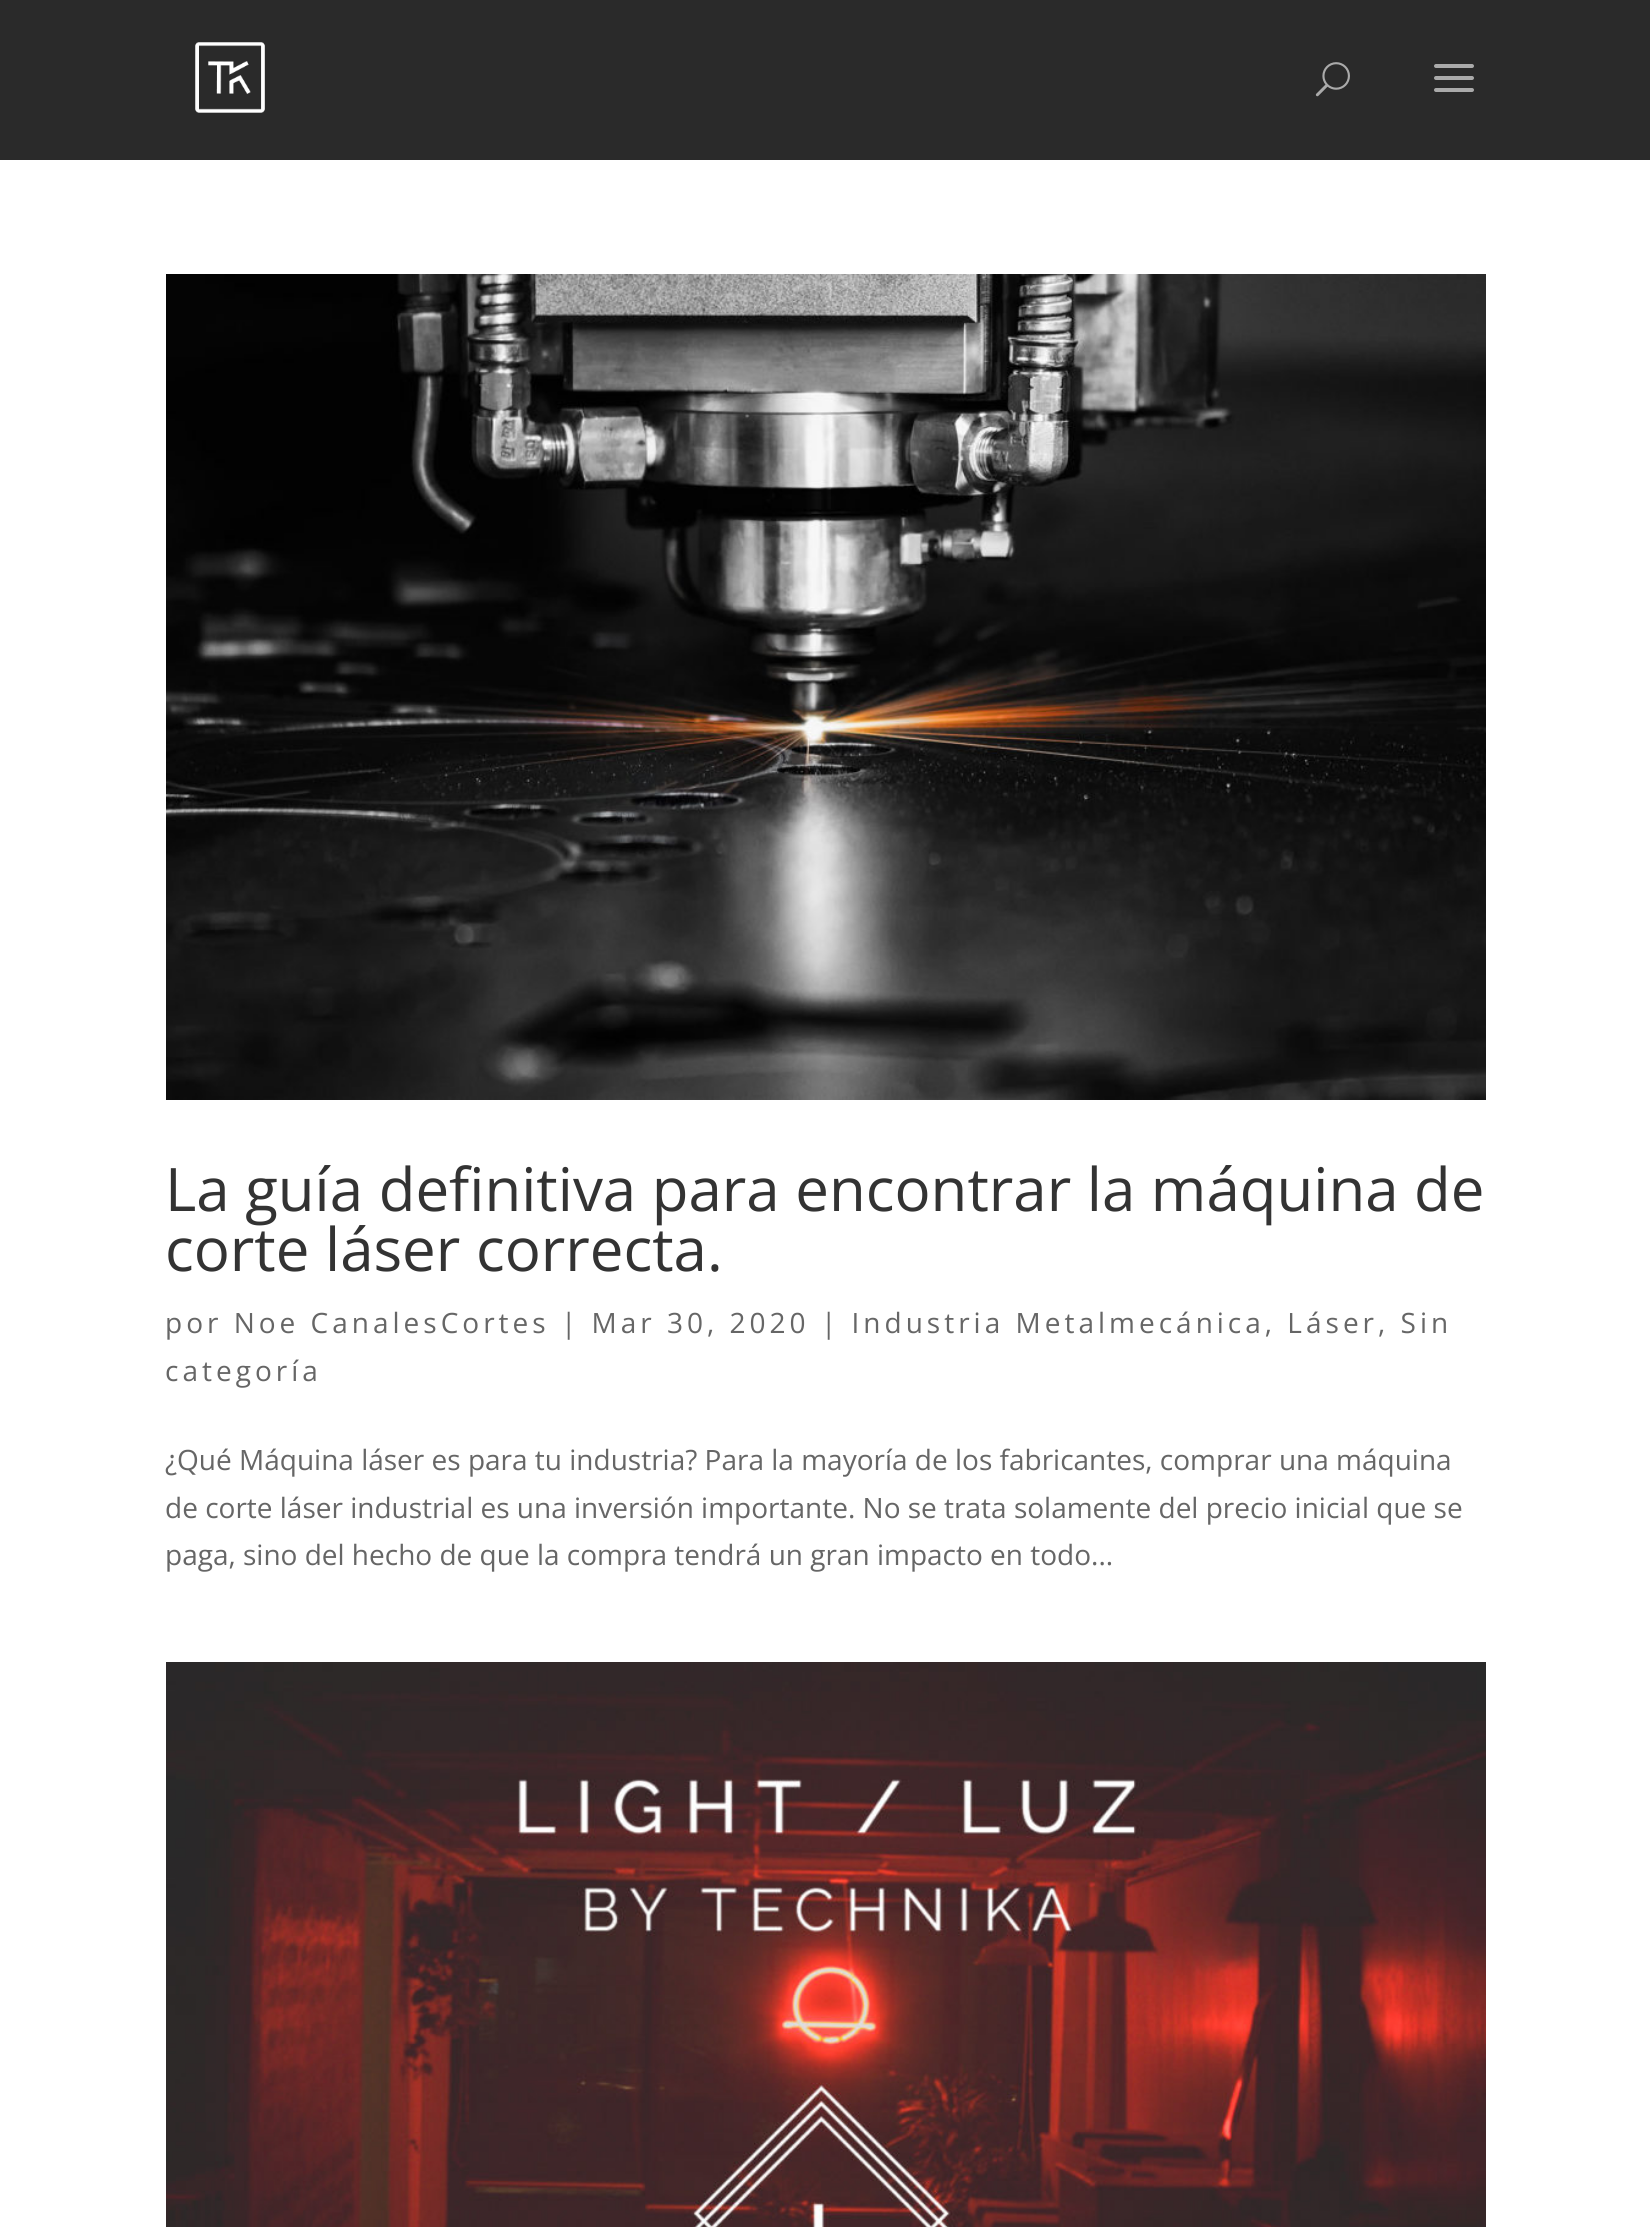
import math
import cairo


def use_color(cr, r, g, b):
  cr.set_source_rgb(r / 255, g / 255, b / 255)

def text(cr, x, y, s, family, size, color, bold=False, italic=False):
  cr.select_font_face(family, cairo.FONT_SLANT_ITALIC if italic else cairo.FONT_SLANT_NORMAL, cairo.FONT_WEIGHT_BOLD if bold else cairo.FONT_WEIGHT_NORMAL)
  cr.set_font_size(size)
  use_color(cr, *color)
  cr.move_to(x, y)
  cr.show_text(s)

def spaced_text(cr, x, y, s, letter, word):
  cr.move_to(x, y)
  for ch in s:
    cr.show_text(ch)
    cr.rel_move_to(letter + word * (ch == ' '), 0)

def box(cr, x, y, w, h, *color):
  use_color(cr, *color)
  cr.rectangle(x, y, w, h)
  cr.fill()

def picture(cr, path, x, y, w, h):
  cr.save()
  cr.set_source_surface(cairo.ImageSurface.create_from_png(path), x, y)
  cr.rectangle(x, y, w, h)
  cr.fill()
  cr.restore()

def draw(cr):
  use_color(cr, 255, 255, 255)
  cr.paint()
  box(cr, 0, 0, 1650, 160, 42, 42, 42)
  picture(cr, "img_01.png", 195, 42, 70, 71)
  picture(cr, "img_02.png", 1315, 62, 35, 35)
  picture(cr, "img_03.png", 1434, 64, 40, 28)
  picture(cr, "img_04.png", 166, 274, 1320, 826)
  picture(cr, "img_05.png", 166, 1662, 1320, 565)
  text(cr, 165, 1211, "La guía definitiva para encontrar la máquina de", "Open Sans", 60, (51, 51, 51))
  text(cr, 165, 1271, "corte láser correcta.", "Open Sans", 60, (51, 51, 51))
  cr.set_font_size(28)
  use_color(cr, 102, 102, 102)
  spaced_text(cr, 165, 1333, "por Noe CanalesCortes | Mar 30, 2020 | Industria Metalmecánica, Láser, Sin", 4, 0)
  spaced_text(cr, 165, 1381, "categoría", 4, 0)
  text(cr, 165, 1470, "¿Qué Máquina láser es para tu industria? Para la mayoría de los fabricantes, comprar una máquina", "Open Sans", 28, (102, 102, 102))
  text(cr, 165, 1518, "de corte láser industrial es una inversión importante. No se trata solamente del precio inicial que se", "Open Sans", 28, (102, 102, 102))
  text(cr, 165, 1565, "paga, sino del hecho de que la compra tendrá un gran impacto en todo...", "Open Sans", 28, (102, 102, 102))


surface = cairo.ImageSurface(cairo.FORMAT_RGB24, 1650, 2227)
cr = cairo.Context(surface)
options = cairo.FontOptions()
options.set_hint_metrics(cairo.HINT_METRICS_OFF)
options.set_hint_style(cairo.HINT_STYLE_NONE)
cr.set_font_options(options)
cr.set_miter_limit(4)
draw(cr)
surface.write_to_png("out.png")
